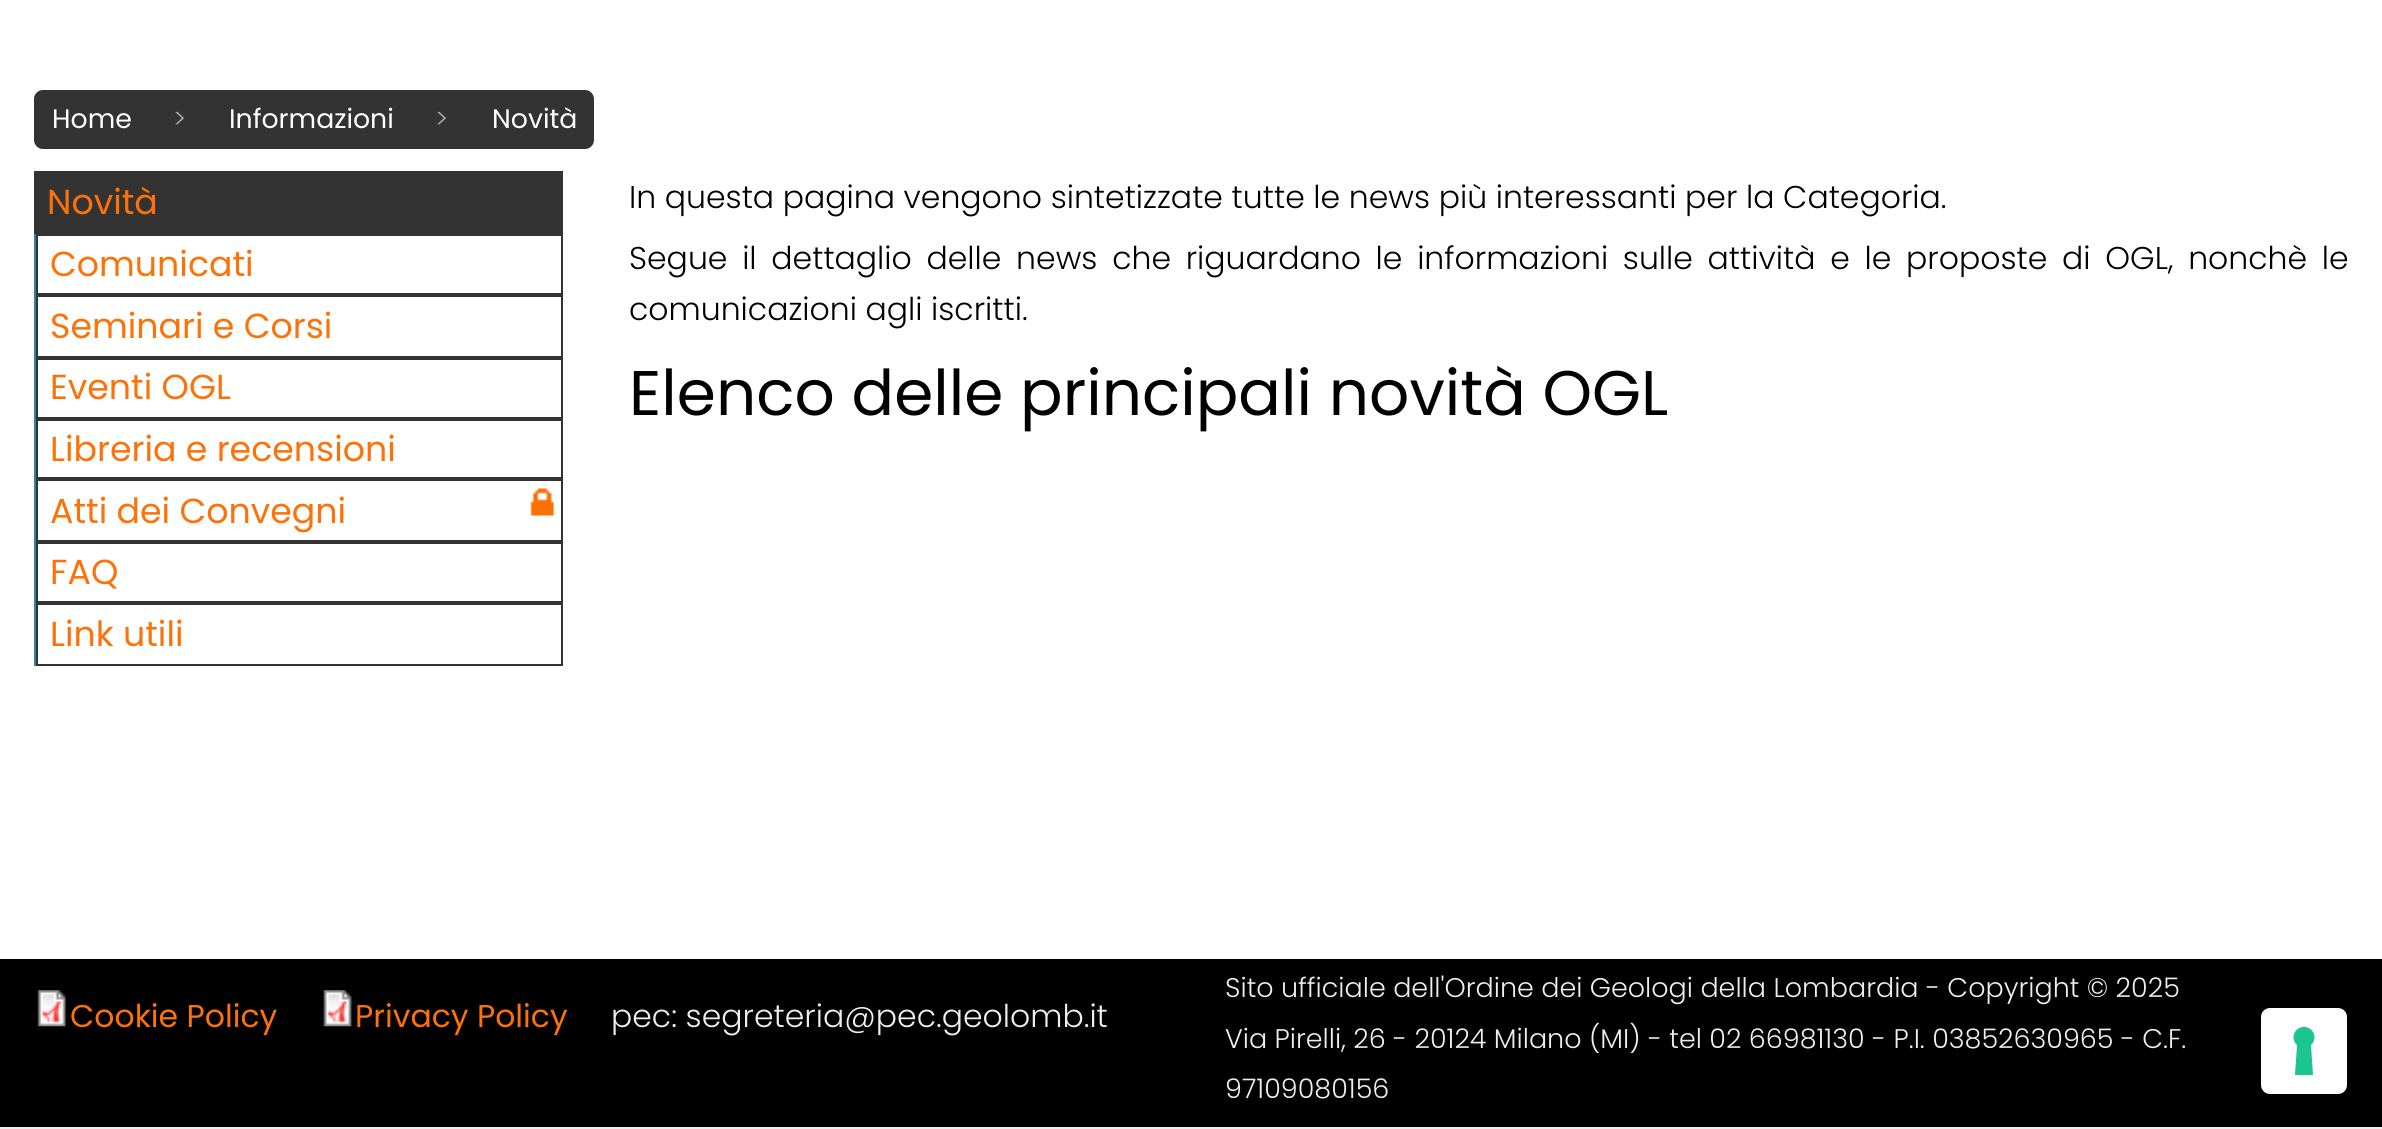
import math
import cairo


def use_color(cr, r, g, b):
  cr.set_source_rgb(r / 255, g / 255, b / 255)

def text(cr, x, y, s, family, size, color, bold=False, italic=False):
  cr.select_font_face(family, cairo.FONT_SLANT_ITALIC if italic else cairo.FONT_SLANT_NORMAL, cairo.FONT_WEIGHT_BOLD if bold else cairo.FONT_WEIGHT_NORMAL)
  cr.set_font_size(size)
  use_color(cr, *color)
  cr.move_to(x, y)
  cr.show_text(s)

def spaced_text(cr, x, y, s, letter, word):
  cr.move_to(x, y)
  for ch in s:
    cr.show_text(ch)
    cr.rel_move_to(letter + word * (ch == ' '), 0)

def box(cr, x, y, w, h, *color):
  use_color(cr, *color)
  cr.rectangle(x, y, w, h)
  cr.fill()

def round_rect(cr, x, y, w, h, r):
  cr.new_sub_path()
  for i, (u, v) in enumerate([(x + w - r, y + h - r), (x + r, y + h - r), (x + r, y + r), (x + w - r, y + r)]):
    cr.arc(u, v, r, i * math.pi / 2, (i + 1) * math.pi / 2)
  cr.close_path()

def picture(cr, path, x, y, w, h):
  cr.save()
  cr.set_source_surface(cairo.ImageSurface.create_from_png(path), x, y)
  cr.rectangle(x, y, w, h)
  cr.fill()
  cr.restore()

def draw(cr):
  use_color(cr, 255, 255, 255)
  cr.paint()
  use_color(cr, 51, 51, 51)
  round_rect(cr, 34, 90, 560, 59, 9)
  cr.fill()
  box(cr, 34, 171, 529, 63, 51, 51, 51)
  box(cr, 34, 234, 2, 432, 43, 130, 172)
  cr.rectangle(37, 235, 525, 59)
  use_color(cr, 51, 51, 51)
  cr.stroke()
  cr.rectangle(37, 296, 525, 61)
  cr.stroke()
  cr.rectangle(37, 359, 525, 59)
  cr.stroke()
  cr.rectangle(37, 420, 525, 58)
  cr.stroke()
  picture(cr, "img_01.png", 530, 488, 25, 29)
  cr.rectangle(37, 480, 525, 61)
  cr.stroke()
  cr.rectangle(37, 543, 525, 59)
  cr.stroke()
  cr.rectangle(37, 604, 525, 61)
  cr.stroke()
  box(cr, 0, 959, 2382, 168, 0, 0, 0)
  box(cr, 0, 1127, 2382, 2, 238, 238, 238)
  picture(cr, "img_02.png", 37, 990, 29, 37)
  picture(cr, "img_03.png", 323, 990, 29, 37)
  use_color(cr, 255, 255, 255)
  round_rect(cr, 2261, 1008, 86, 86, 9)
  cr.fill()
  use_color(cr, 28, 198, 145)
  cr.set_fill_rule(cairo.FILL_RULE_EVEN_ODD)
  cr.new_path()
  cr.move_to(2304, 1027)
  cr.curve_to(2314, 1027, 2318, 1039, 2311, 1045)
  cr.line_to(2313, 1075)
  cr.line_to(2295, 1075)
  cr.line_to(2297, 1045)
  cr.curve_to(2290, 1039, 2294, 1027, 2304, 1027)
  cr.close_path()
  cr.fill()
  text(cr, 52, 128, "Home", "Poppins", 26.75, (255, 255, 255))
  text(cr, 173, 128, ">", "Poppins Light", 26.75, (170, 170, 170))
  text(cr, 229, 128, "Informazioni", "Poppins", 26.75, (255, 255, 255))
  text(cr, 435, 128, ">", "Poppins Light", 26.75, (170, 170, 170))
  text(cr, 492, 128, "Novità", "Poppins", 26.75, (255, 255, 255))
  text(cr, 47, 214, "Novità", "Poppins", 34.75, (252, 114, 9))
  text(cr, 50, 276, "Comunicati", "Poppins", 34.75, (252, 114, 9))
  text(cr, 50, 338, "Seminari e Corsi", "Poppins", 34.75, (252, 114, 9))
  text(cr, 50, 399, "Eventi OGL", "Poppins", 34.75, (252, 114, 9))
  text(cr, 50, 461, "Libreria e recensioni", "Poppins", 34.75, (252, 114, 9))
  text(cr, 50, 523, "Atti dei Convegni", "Poppins", 34.75, (252, 114, 9))
  text(cr, 50, 584, "FAQ", "Poppins", 34.75, (252, 114, 9))
  text(cr, 50, 646, "Link utili", "Poppins", 34.75, (252, 114, 9))
  text(cr, 629, 208, "In questa pagina vengono sintetizzate tutte le news più interessanti per la Categoria.", "Poppins Light", 31.5, (0, 0, 0))
  spaced_text(cr, 629, 269, "Segue il dettaglio delle news che riguardano le informazioni sulle attività e le proposte di OGL, nonchè le", 0, 6.1)
  text(cr, 629, 320, "comunicazioni agli iscritti.", "Poppins Light", 31.5, (0, 0, 0))
  text(cr, 629, 415, "Elenco delle principali novità OGL", "Poppins", 63, (0, 0, 0))
  text(cr, 70, 1027, "Cookie Policy", "Poppins", 31.5, (252, 114, 9))
  text(cr, 355, 1027, "Privacy Policy", "Poppins", 31.5, (252, 114, 9))
  text(cr, 611, 1027, "pec: segreteria@pec.geolomb.it", "Poppins Light", 31.5, (238, 238, 238))
  text(cr, 1225, 997, "Sito ufficiale dell'Ordine dei Geologi della Lombardia - Copyright © 2025", "Poppins Light", 27, (238, 238, 238))
  text(cr, 1225, 1048, "Via Pirelli, 26 - 20124 Milano (MI) - tel 02 66981130 - P.I. 03852630965 - C.F.", "Poppins Light", 27, (238, 238, 238))
  text(cr, 1225, 1098, "97109080156", "Poppins Light", 27, (238, 238, 238))


surface = cairo.ImageSurface(cairo.FORMAT_RGB24, 2382, 1129)
cr = cairo.Context(surface)
options = cairo.FontOptions()
options.set_hint_metrics(cairo.HINT_METRICS_OFF)
options.set_hint_style(cairo.HINT_STYLE_NONE)
cr.set_font_options(options)
cr.set_miter_limit(4)
draw(cr)
surface.write_to_png("out.png")
